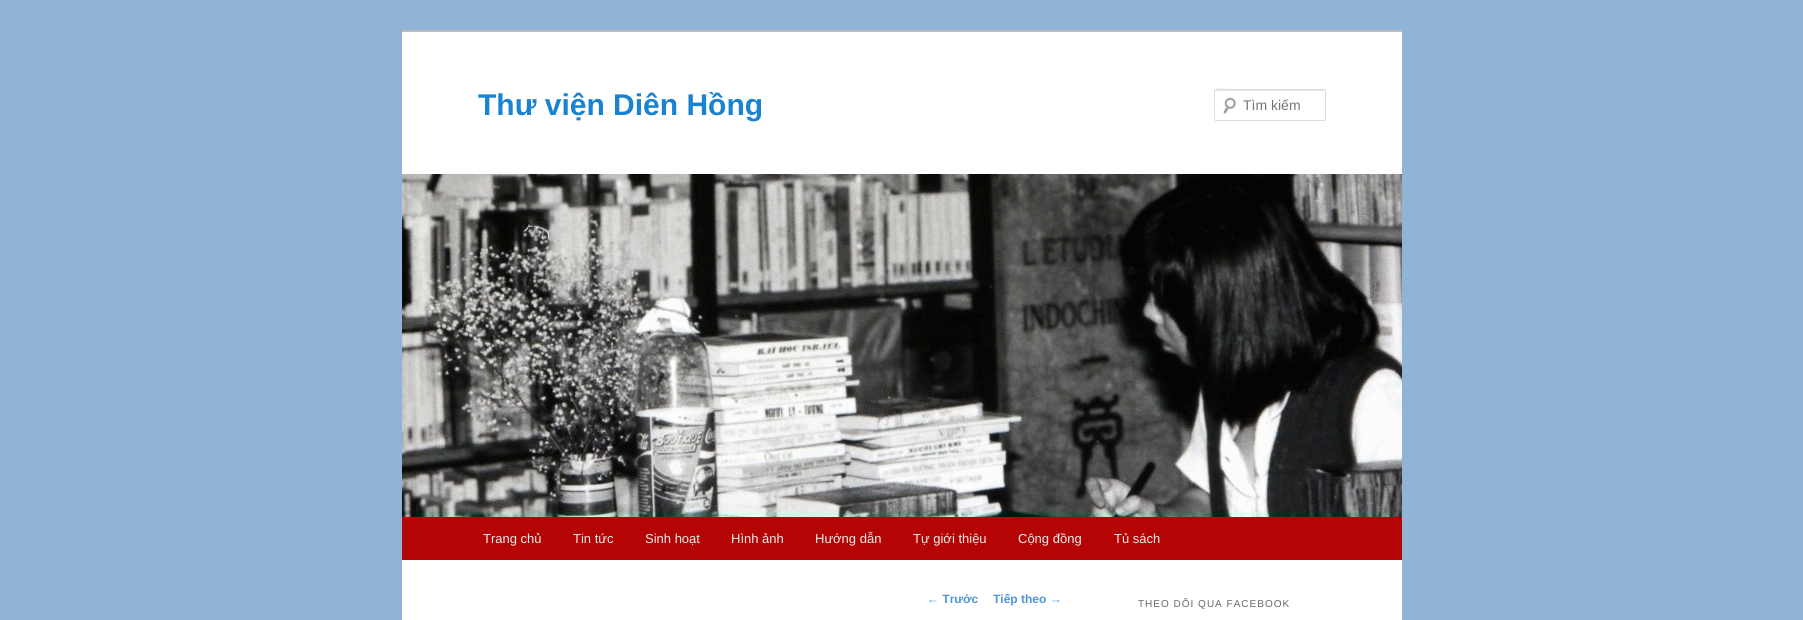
import math
import cairo


def use_color(cr, r, g, b):
  cr.set_source_rgb(r / 255, g / 255, b / 255)

def text(cr, x, y, s, family, size, color, bold=False, italic=False):
  cr.select_font_face(family, cairo.FONT_SLANT_ITALIC if italic else cairo.FONT_SLANT_NORMAL, cairo.FONT_WEIGHT_BOLD if bold else cairo.FONT_WEIGHT_NORMAL)
  cr.set_font_size(size)
  use_color(cr, *color)
  cr.move_to(x, y)
  cr.show_text(s)

def spaced_text(cr, x, y, s, letter, word):
  cr.move_to(x, y)
  for ch in s:
    cr.show_text(ch)
    cr.rel_move_to(letter + word * (ch == ' '), 0)

def box(cr, x, y, w, h, *color):
  use_color(cr, *color)
  cr.rectangle(x, y, w, h)
  cr.fill()

def round_rect(cr, x, y, w, h, r):
  cr.new_sub_path()
  for i, (u, v) in enumerate([(x + w - r, y + h - r), (x + r, y + h - r), (x + r, y + r), (x + w - r, y + r)]):
    cr.arc(u, v, r, i * math.pi / 2, (i + 1) * math.pi / 2)
  cr.close_path()

def picture(cr, path, x, y, w, h):
  cr.save()
  cr.set_source_surface(cairo.ImageSurface.create_from_png(path), x, y)
  cr.rectangle(x, y, w, h)
  cr.fill()
  cr.restore()

def draw(cr):
  use_color(cr, 145, 179, 214)
  cr.paint()
  box(cr, 402, 32, 1000, 588, 255, 255, 255)
  box(cr, 402, 30, 1000, 2, 187, 187, 187)
  picture(cr, "img_01.png", 1223, 97, 13, 17)
  use_color(cr, 230, 230, 230)
  cr.new_path()
  cr.move_to(1216, 91)
  cr.line_to(1325, 91)
  cr.line_to(1325, 92)
  cr.line_to(1324, 90)
  cr.line_to(1234, 90)
  cr.curve_to(1230, 90, 1215, 85, 1215, 92)
  cr.curve_to(1215, 91, 1215, 91, 1216, 91)
  cr.close_path()
  cr.fill()
  round_rect(cr, 1214.5, 89.5, 111, 31, 1.5)
  use_color(cr, 221, 221, 221)
  cr.set_line_width(1)
  cr.stroke()
  picture(cr, "img_02.png", 402, 174, 1000, 343)
  box(cr, 402, 517, 1000, 43, 180, 4, 4)
  text(cr, 478, 115, "Thư viện Diên Hồng", "Liberation Sans", 30, (25, 130, 209), bold=True)
  text(cr, 1243, 110, "Tìm kiếm", "Liberation Sans", 14, (117, 117, 117))
  text(cr, 483, 543, "Trang chủ", "Liberation Sans", 13, (238, 238, 238))
  text(cr, 573, 543, "Tin tức", "Liberation Sans", 13, (238, 238, 238))
  text(cr, 645, 543, "Sinh hoạt", "Liberation Sans", 13, (238, 238, 238))
  text(cr, 731, 543, "Hình ảnh", "Liberation Sans", 13, (238, 238, 238))
  text(cr, 815, 543, "Hướng dẫn", "Liberation Sans", 13, (238, 238, 238))
  text(cr, 913, 543, "Tự giới thiệu", "Liberation Sans", 13, (238, 238, 238))
  text(cr, 1018, 543, "Cộng đồng", "Liberation Sans", 13, (238, 238, 238))
  text(cr, 1114, 543, "Tủ sách", "Liberation Sans", 13, (238, 238, 238))
  text(cr, 927, 603, "← Trước", "Liberation Sans", 12, (79, 148, 214), bold=True)
  text(cr, 993, 603, "Tiếp theo →", "Liberation Sans", 12, (79, 148, 214), bold=True)
  cr.select_font_face("Liberation Sans")
  cr.set_font_size(10)
  use_color(cr, 102, 102, 102)
  spaced_text(cr, 1138, 607, "THEO DÕI QUA FACEBOOK", 1, 0)


surface = cairo.ImageSurface(cairo.FORMAT_RGB24, 1803, 620)
cr = cairo.Context(surface)
options = cairo.FontOptions()
options.set_hint_metrics(cairo.HINT_METRICS_OFF)
options.set_hint_style(cairo.HINT_STYLE_NONE)
cr.set_font_options(options)
cr.set_miter_limit(4)
draw(cr)
surface.write_to_png("out.png")
